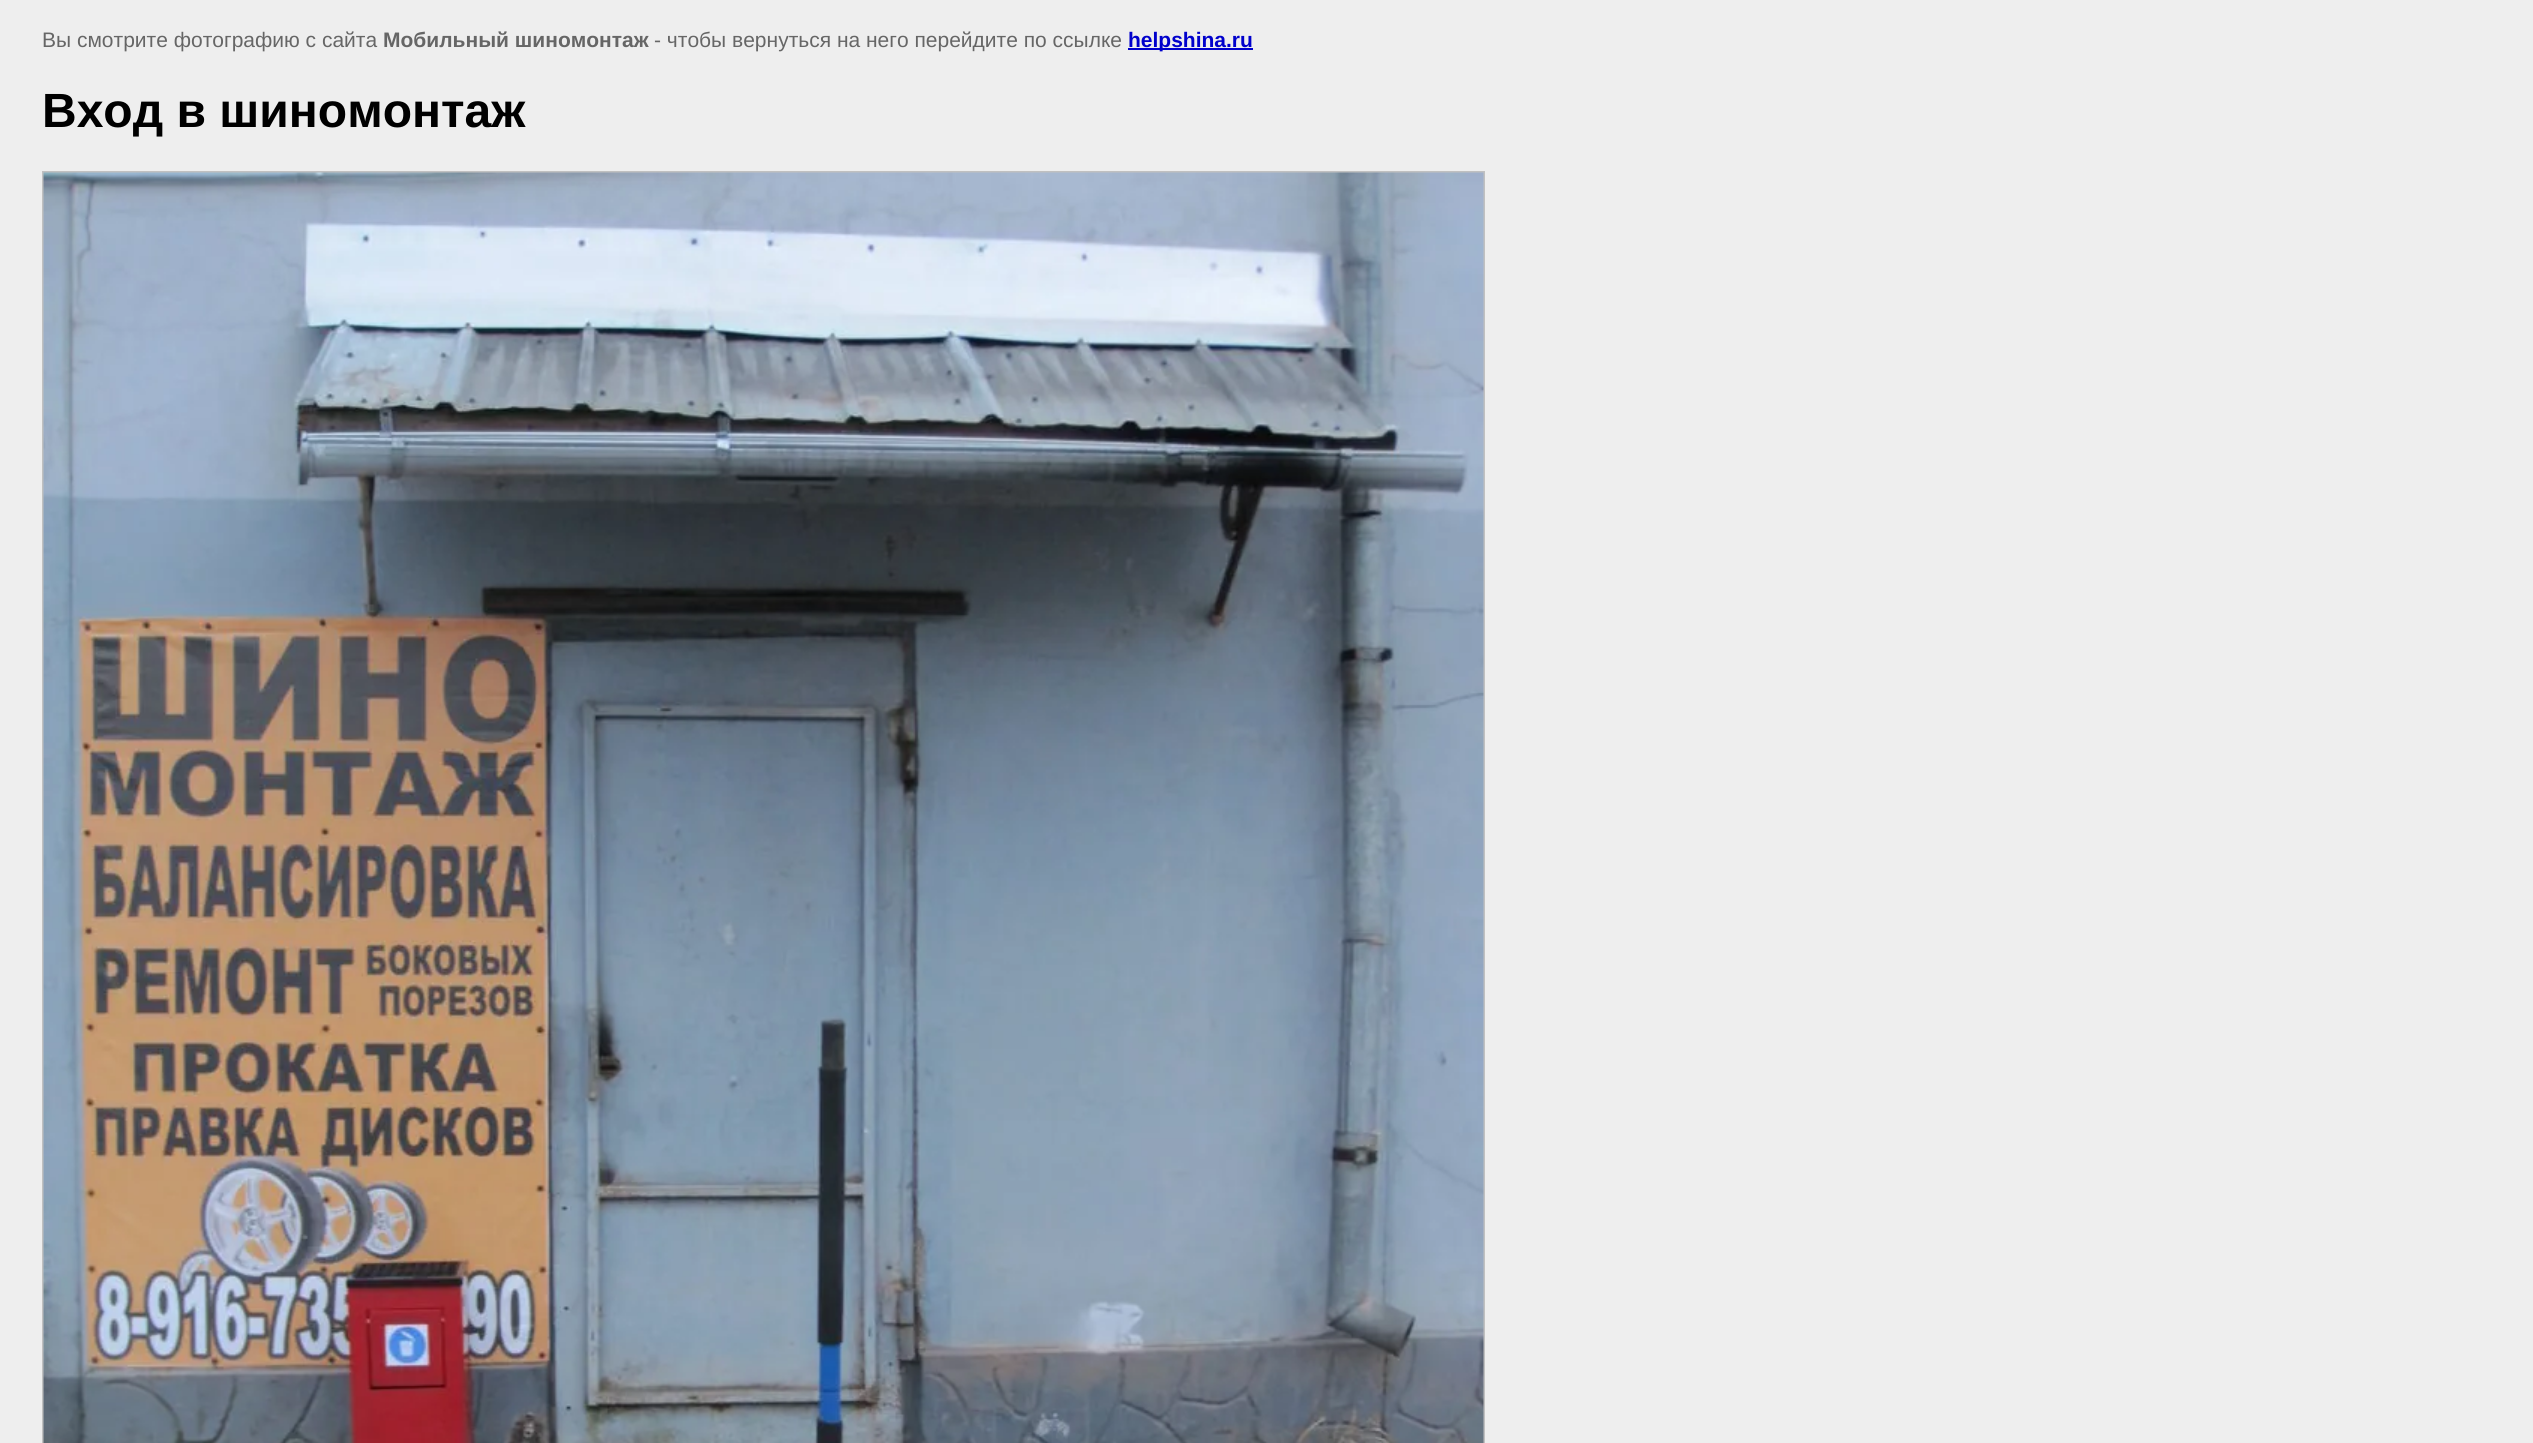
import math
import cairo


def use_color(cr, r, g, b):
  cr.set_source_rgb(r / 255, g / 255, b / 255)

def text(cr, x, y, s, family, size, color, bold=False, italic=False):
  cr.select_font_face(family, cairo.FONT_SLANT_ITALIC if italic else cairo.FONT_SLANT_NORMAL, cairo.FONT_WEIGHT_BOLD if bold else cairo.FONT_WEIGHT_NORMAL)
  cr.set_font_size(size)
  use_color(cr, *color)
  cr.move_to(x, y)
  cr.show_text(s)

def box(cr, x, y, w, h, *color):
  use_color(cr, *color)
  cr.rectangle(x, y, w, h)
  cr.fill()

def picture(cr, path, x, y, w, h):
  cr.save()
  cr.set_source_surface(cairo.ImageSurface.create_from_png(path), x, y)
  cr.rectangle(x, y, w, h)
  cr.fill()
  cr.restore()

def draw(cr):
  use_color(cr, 238, 238, 238)
  cr.paint()
  box(cr, 1128, 48, 125, 2, 0, 0, 204)
  cr.rectangle(43, 172, 1441, 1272)
  use_color(cr, 192, 192, 192)
  cr.stroke()
  picture(cr, "img_01.png", 43, 172, 1441, 1271)
  text(cr, 42, 47, "Вы смотрите фотографию с сайта", "Liberation Sans", 21, (102, 102, 102))
  text(cr, 383, 47, "Мобильный шиномонтаж", "Liberation Sans", 21, (102, 102, 102), bold=True)
  text(cr, 654, 47, "- чтобы вернуться на него перейдите по ссылке", "Liberation Sans", 21, (102, 102, 102))
  text(cr, 1128, 47, "helpshina.ru", "Liberation Sans", 21, (0, 0, 204), bold=True)
  text(cr, 42, 127, "Вход в шиномонтаж", "Liberation Sans", 48, (0, 0, 0), bold=True)


surface = cairo.ImageSurface(cairo.FORMAT_RGB24, 2533, 1443)
cr = cairo.Context(surface)
options = cairo.FontOptions()
options.set_hint_metrics(cairo.HINT_METRICS_OFF)
options.set_hint_style(cairo.HINT_STYLE_NONE)
cr.set_font_options(options)
cr.set_miter_limit(4)
draw(cr)
surface.write_to_png("out.png")
